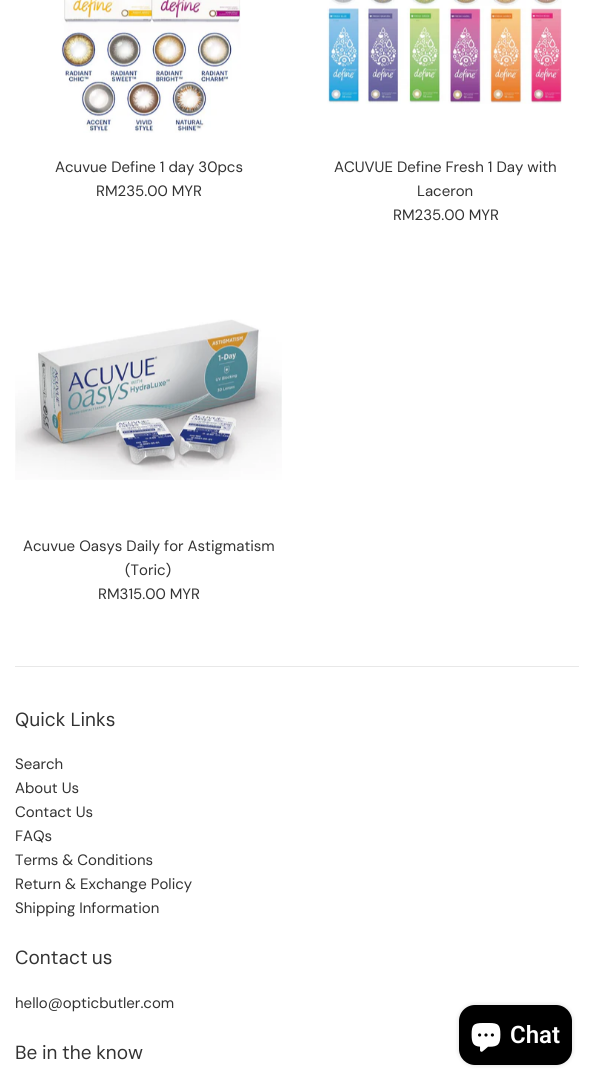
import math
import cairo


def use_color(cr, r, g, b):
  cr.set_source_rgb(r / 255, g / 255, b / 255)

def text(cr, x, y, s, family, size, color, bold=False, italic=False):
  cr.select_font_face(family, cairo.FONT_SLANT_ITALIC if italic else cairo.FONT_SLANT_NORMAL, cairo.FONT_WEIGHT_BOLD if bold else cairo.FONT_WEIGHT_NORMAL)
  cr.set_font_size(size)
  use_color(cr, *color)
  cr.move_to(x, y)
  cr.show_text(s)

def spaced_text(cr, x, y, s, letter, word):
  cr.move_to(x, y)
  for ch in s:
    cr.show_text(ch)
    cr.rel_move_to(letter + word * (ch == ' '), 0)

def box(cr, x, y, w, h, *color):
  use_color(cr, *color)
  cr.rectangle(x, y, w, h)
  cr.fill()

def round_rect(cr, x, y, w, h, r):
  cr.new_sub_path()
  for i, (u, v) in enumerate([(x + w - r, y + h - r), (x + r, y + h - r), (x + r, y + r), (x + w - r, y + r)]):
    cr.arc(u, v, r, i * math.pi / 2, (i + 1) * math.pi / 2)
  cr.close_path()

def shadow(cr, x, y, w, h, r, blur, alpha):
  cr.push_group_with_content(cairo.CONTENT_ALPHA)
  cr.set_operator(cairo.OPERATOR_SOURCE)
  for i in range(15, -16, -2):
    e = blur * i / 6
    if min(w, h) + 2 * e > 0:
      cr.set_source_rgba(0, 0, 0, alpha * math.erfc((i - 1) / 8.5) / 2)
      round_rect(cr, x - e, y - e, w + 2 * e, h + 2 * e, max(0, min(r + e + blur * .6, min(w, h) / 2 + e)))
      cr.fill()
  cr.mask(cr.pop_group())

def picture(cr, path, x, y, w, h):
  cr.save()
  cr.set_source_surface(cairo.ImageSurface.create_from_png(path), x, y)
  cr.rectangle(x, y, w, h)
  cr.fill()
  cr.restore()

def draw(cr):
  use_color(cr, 255, 255, 255)
  cr.paint()
  picture(cr, "img_01.png", 61, 0, 180, 133)
  picture(cr, "img_02.png", 327, 0, 235, 104)
  picture(cr, "img_03.png", 15, 319, 267, 161)
  box(cr, 15, 666, 564, 1, 232, 232, 232)
  use_color(cr, 0, 0, 0)
  shadow(cr, 459, 1005, 113, 60, 16, 2.5, 0.15)
  use_color(cr, 0, 0, 0)
  round_rect(cr, 459, 1005, 113, 60, 16)
  cr.fill()
  picture(cr, "img_04.png", 471, 1023, 30, 29)
  text(cr, 55, 172, "Acuvue Define 1 day 30pcs", "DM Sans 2", 15, (51, 51, 51))
  text(cr, 96, 196, "RM235.00 MYR", "DM Sans 2", 15, (51, 51, 51))
  text(cr, 334, 172, "ACUVUE Define Fresh 1 Day with", "DM Sans 2", 15, (51, 51, 51))
  text(cr, 417, 196, "Laceron", "DM Sans 2", 15, (51, 51, 51))
  text(cr, 393, 220, "RM235.00 MYR", "DM Sans 2", 15, (51, 51, 51))
  text(cr, 23, 551, "Acuvue Oasys Daily for Astigmatism", "DM Sans 2", 15, (51, 51, 51))
  text(cr, 125, 575, "(Toric)", "DM Sans 2", 15, (51, 51, 51))
  text(cr, 98, 599, "RM315.00 MYR", "DM Sans 2", 15, (51, 51, 51))
  text(cr, 15, 726, "Quick Links", "DM Sans", 19, (51, 51, 51))
  text(cr, 15, 769, "Search", "DM Sans 2", 15, (51, 51, 51))
  text(cr, 15, 793, "About Us", "DM Sans 2", 15, (51, 51, 51))
  text(cr, 15, 817, "Contact Us", "DM Sans 2", 15, (51, 51, 51))
  text(cr, 15, 841, "FAQs", "DM Sans 2", 15, (51, 51, 51))
  text(cr, 15, 865, "Terms & Conditions", "DM Sans 2", 15, (51, 51, 51))
  text(cr, 15, 889, "Return & Exchange Policy", "DM Sans 2", 15, (51, 51, 51))
  text(cr, 15, 913, "Shipping Information", "DM Sans 2", 15, (51, 51, 51))
  cr.select_font_face("DM Sans")
  cr.set_font_size(19)
  spaced_text(cr, 15, 964, "Contact us", 0, -1)
  text(cr, 15, 1008, "hello@opticbutler.com", "DM Sans 2", 15, (51, 51, 51))
  cr.select_font_face("DM Sans")
  cr.set_font_size(19)
  spaced_text(cr, 15, 1059, "Be in the know", 0, -0.5)
  text(cr, 510, 1043, "Chat", "Roboto SemiBold", 24, (255, 255, 255))


surface = cairo.ImageSurface(cairo.FORMAT_RGB24, 594, 1086)
cr = cairo.Context(surface)
options = cairo.FontOptions()
options.set_hint_metrics(cairo.HINT_METRICS_OFF)
options.set_hint_style(cairo.HINT_STYLE_NONE)
cr.set_font_options(options)
cr.set_miter_limit(4)
draw(cr)
surface.write_to_png("out.png")
